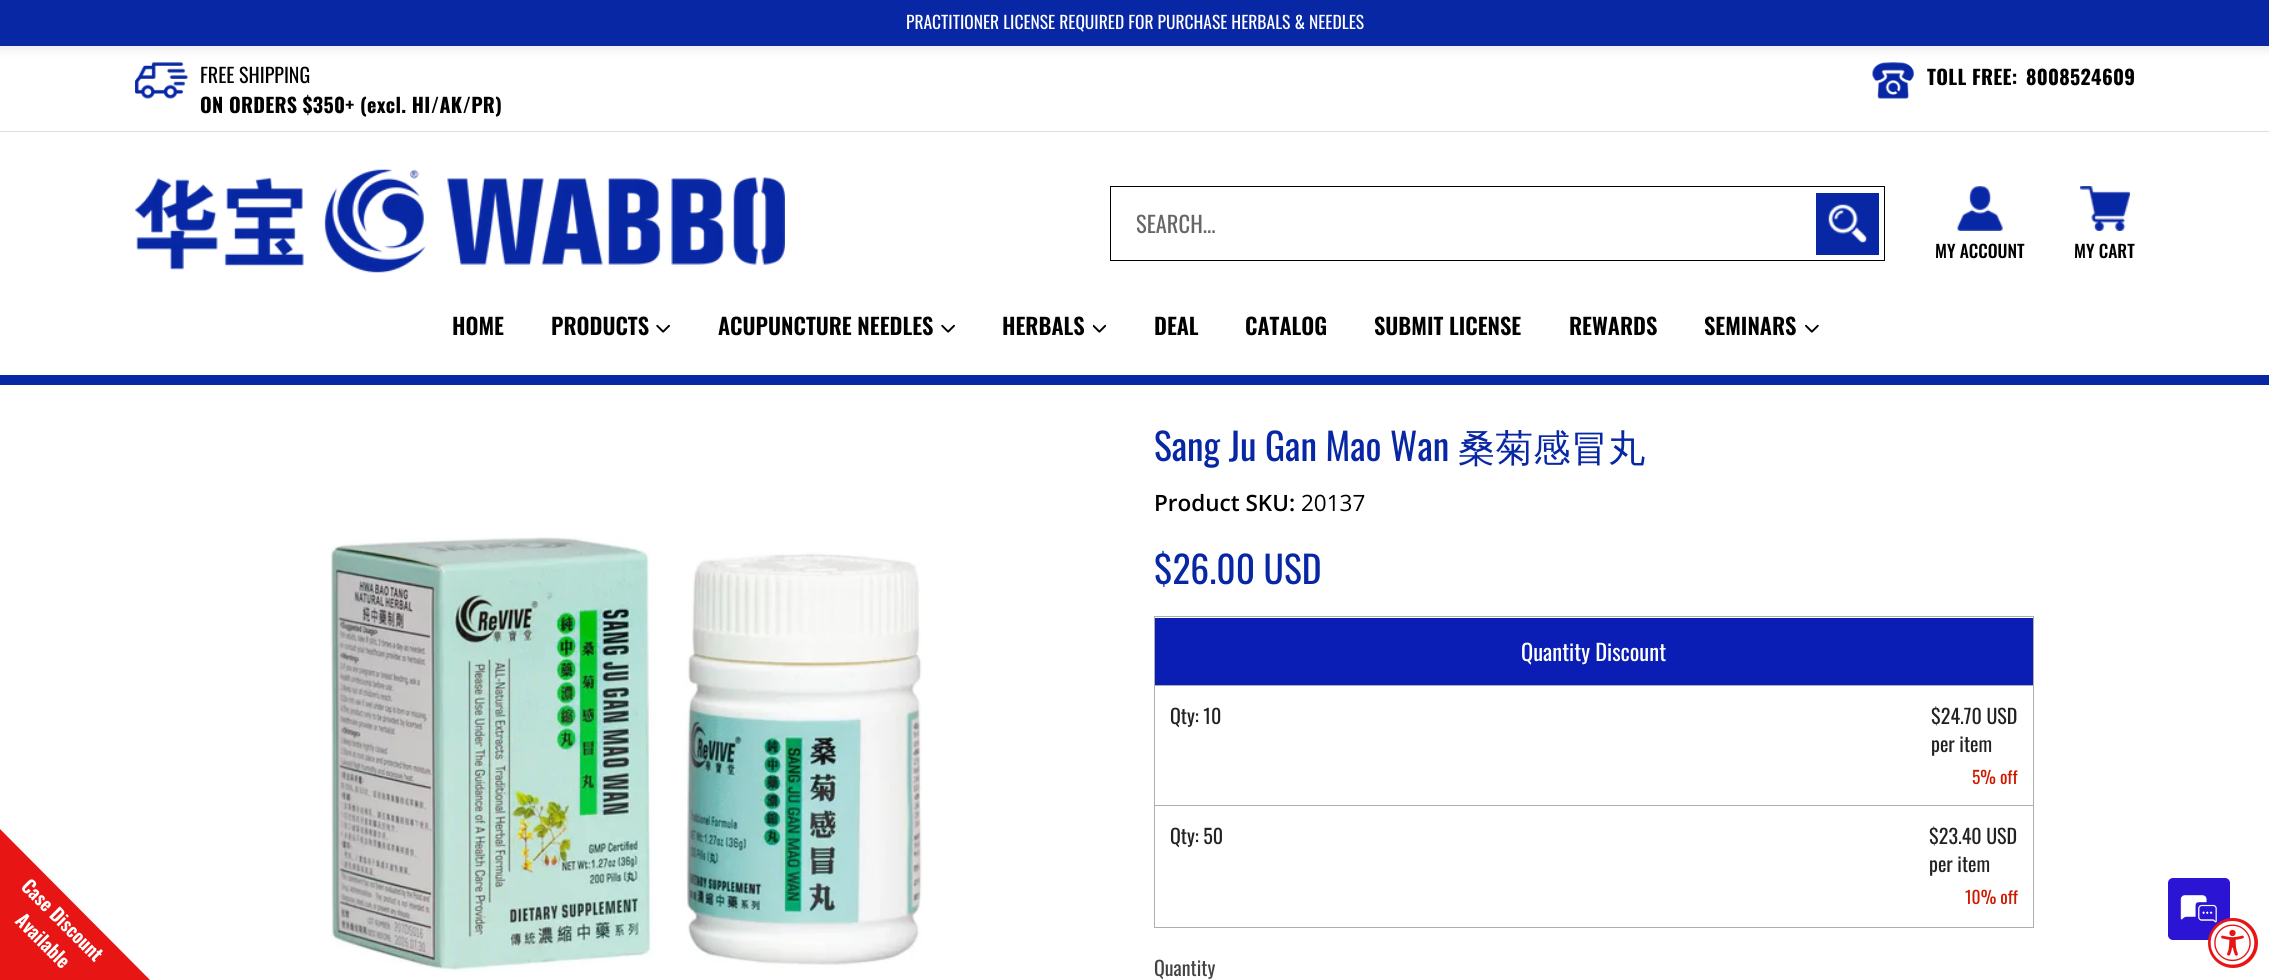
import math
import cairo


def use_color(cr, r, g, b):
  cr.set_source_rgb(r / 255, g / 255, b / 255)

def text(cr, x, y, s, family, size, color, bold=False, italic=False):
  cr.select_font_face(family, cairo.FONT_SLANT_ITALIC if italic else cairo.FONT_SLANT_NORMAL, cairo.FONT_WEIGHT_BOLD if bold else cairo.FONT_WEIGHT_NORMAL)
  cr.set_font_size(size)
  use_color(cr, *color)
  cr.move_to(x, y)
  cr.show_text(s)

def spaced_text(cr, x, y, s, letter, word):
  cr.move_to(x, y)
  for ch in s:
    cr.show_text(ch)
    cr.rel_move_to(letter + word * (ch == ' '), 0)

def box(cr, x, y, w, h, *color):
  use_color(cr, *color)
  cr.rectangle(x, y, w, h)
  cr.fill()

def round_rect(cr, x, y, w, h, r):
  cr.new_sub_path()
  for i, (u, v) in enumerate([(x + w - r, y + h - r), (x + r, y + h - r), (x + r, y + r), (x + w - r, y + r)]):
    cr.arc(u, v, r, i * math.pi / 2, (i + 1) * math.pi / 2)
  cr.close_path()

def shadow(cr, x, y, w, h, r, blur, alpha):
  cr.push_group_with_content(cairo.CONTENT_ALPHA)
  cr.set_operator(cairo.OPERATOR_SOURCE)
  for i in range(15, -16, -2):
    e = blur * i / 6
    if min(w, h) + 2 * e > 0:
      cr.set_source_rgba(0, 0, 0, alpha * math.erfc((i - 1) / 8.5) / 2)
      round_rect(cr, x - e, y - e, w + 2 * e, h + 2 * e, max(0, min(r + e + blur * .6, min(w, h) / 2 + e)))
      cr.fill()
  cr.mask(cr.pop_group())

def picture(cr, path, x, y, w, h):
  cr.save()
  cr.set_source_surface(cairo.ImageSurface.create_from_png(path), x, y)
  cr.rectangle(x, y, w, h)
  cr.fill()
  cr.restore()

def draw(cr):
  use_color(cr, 255, 255, 255)
  cr.paint()
  picture(cr, "img_01.png", 135, 62, 53, 37)
  picture(cr, "img_02.png", 1872, 62, 42, 37)
  use_color(cr, 0, 0, 0)
  shadow(cr, -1, -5, 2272, 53, 0, 5.5, 0.11)
  box(cr, 0, 0, 2269, 46, 8, 39, 164)
  box(cr, 0, 375, 2269, 10, 8, 39, 164)
  box(cr, 0, 131, 2269, 1, 221, 221, 221)
  picture(cr, "img_03.png", 135, 169, 650, 104)
  cr.rectangle(1110.5, 186.5, 774, 74)
  use_color(cr, 0, 0, 0)
  cr.set_line_width(1)
  cr.stroke()
  box(cr, 1816, 193, 63, 62, 8, 39, 164)
  picture(cr, "img_04.png", 1828, 204, 39, 39)
  picture(cr, "img_05.png", 1957, 186, 46, 45)
  picture(cr, "img_06.png", 2080, 186, 50, 45)
  picture(cr, "img_07.png", 656, 324, 14, 9)
  picture(cr, "img_07.png", 941, 324, 14, 9)
  picture(cr, "img_08.png", 1093, 324, 13, 9)
  picture(cr, "img_09.png", 1805, 324, 14, 9)
  use_color(cr, 232, 21, 21)
  cr.new_path()
  cr.move_to(150, 980)
  cr.line_to(-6, 980)
  cr.line_to(-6, 823)
  cr.close_path()
  cr.fill()
  picture(cr, "img_10.png", 330, 537, 593, 435)
  cr.rectangle(1154.5, 616.5, 879, 311)
  use_color(cr, 174, 174, 174)
  cr.stroke()
  box(cr, 1155, 618, 878, 67, 10, 30, 181)
  box(cr, 1155, 685, 878, 1, 174, 174, 174)
  box(cr, 1155, 805, 878, 1, 174, 174, 174)
  use_color(cr, 43, 20, 212)
  round_rect(cr, 2168, 878, 62, 62, 5)
  cr.fill()
  picture(cr, "img_11.png", 2180, 895, 37, 28)
  use_color(cr, 232, 21, 21)
  cr.arc(2233, 943, 25, 0, 2 * math.pi)
  cr.fill()
  picture(cr, "img_12.png", 2210, 921, 45, 44)
  text(cr, 906, 29, "PRACTITIONER LICENSE REQUIRED FOR PURCHASE HERBALS & NEEDLES", "Oswald", 17.5, (255, 255, 255))
  text(cr, 200, 83, "FREE SHIPPING", "Oswald", 20, (0, 0, 0))
  cr.select_font_face("Oswald", cairo.FONT_SLANT_NORMAL, cairo.FONT_WEIGHT_BOLD)
  spaced_text(cr, 200, 113, "ON ORDERS $350+ (excl. HI/AK/PR)", 0.3, 0)
  spaced_text(cr, 1927, 85, "TOLL FREE:", 0.3, 0)
  spaced_text(cr, 2026, 85, "8008524609", 0.3, 0)
  text(cr, 1136, 233, "SEARCH...", "Oswald", 22.5, (102, 102, 102))
  text(cr, 1935, 258, "MY ACCOUNT", "Oswald Medium", 17.5, (0, 0, 0))
  text(cr, 2074, 258, "MY CART", "Oswald Medium", 17.5, (0, 0, 0))
  text(cr, 452, 335, "HOME", "Oswald SemiBold", 22.5, (0, 0, 0))
  text(cr, 551, 335, "PRODUCTS", "Oswald SemiBold", 22.5, (0, 0, 0))
  text(cr, 718, 335, "ACUPUNCTURE NEEDLES", "Oswald SemiBold", 22.5, (0, 0, 0))
  text(cr, 1002, 335, "HERBALS", "Oswald SemiBold", 22.5, (0, 0, 0))
  text(cr, 1154, 335, "DEAL", "Oswald SemiBold", 22.5, (0, 0, 0))
  text(cr, 1245, 335, "CATALOG", "Oswald SemiBold", 22.5, (0, 0, 0))
  text(cr, 1374, 335, "SUBMIT LICENSE", "Oswald SemiBold", 22.5, (0, 0, 0))
  text(cr, 1569, 335, "REWARDS", "Oswald SemiBold", 22.5, (0, 0, 0))
  text(cr, 1704, 335, "SEMINARS", "Oswald SemiBold", 22.5, (0, 0, 0))
  cr.save()
  cr.translate(20, 888)
  cr.rotate(45 * math.pi / 180)
  text(cr, 0, 0, "Case Discount", "Oswald SemiBold", 18.75, (255, 255, 255))
  cr.restore()
  cr.save()
  cr.translate(14, 922)
  cr.rotate(45 * math.pi / 180)
  text(cr, 0, 0, "Available", "Oswald SemiBold", 18.75, (255, 255, 255))
  cr.restore()
  text(cr, 1154, 461, "Sang Ju Gan Mao Wan", "Oswald", 37.5, (8, 39, 164))
  text(cr, 1458, 461, "桑菊感冒丸", "WenQuanYi Zen Hei Medium", 37.5, (8, 39, 164))
  text(cr, 1154, 511, "Product SKU:", "Open Sans SemiBold", 22.5, (0, 0, 0))
  text(cr, 1301, 511, "20137", "Open Sans", 22.5, (0, 0, 0))
  text(cr, 1154, 584, "$26.00 USD", "Oswald", 37.5, (8, 39, 164))
  text(cr, 1521, 661, "Quantity Discount", "Oswald", 22.5, (255, 255, 255))
  text(cr, 1170, 724, "Qty: 10", "Oswald", 20, (34, 34, 34))
  text(cr, 1931, 724, "$24.70 USD", "Oswald", 20, (34, 34, 34))
  text(cr, 1931, 752, "per item", "Oswald", 20, (34, 34, 34))
  text(cr, 1972, 784, "5% off", "Oswald", 17.5, (206, 25, 0))
  text(cr, 1170, 844, "Qty: 50", "Oswald", 20, (34, 34, 34))
  text(cr, 1929, 844, "$23.40 USD", "Oswald", 20, (34, 34, 34))
  text(cr, 1929, 872, "per item", "Oswald", 20, (34, 34, 34))
  text(cr, 1965, 904, "10% off", "Oswald", 17.5, (206, 25, 0))
  text(cr, 1154, 976, "Quantity", "Oswald", 20, (68, 68, 68))


surface = cairo.ImageSurface(cairo.FORMAT_RGB24, 2269, 980)
cr = cairo.Context(surface)
options = cairo.FontOptions()
options.set_hint_metrics(cairo.HINT_METRICS_OFF)
options.set_hint_style(cairo.HINT_STYLE_NONE)
cr.set_font_options(options)
cr.set_miter_limit(4)
draw(cr)
surface.write_to_png("out.png")
